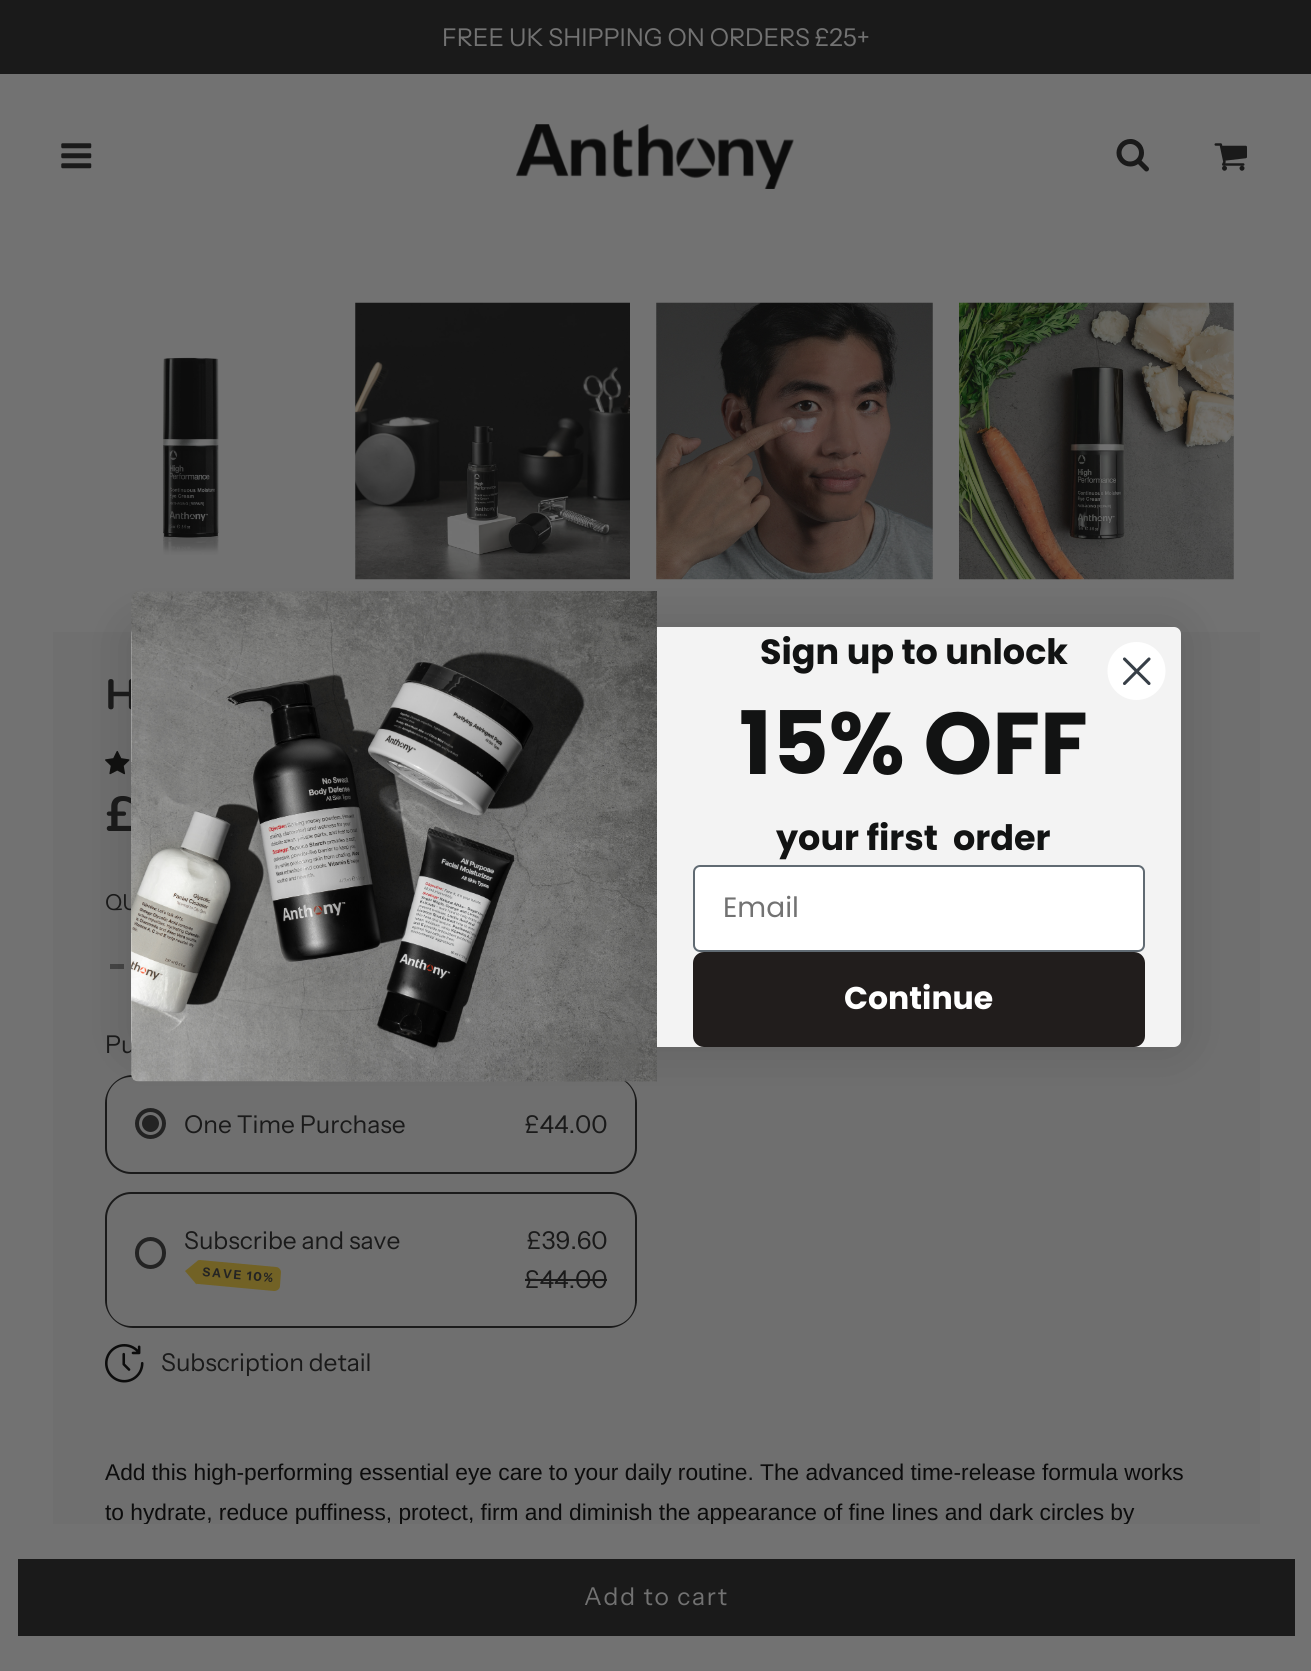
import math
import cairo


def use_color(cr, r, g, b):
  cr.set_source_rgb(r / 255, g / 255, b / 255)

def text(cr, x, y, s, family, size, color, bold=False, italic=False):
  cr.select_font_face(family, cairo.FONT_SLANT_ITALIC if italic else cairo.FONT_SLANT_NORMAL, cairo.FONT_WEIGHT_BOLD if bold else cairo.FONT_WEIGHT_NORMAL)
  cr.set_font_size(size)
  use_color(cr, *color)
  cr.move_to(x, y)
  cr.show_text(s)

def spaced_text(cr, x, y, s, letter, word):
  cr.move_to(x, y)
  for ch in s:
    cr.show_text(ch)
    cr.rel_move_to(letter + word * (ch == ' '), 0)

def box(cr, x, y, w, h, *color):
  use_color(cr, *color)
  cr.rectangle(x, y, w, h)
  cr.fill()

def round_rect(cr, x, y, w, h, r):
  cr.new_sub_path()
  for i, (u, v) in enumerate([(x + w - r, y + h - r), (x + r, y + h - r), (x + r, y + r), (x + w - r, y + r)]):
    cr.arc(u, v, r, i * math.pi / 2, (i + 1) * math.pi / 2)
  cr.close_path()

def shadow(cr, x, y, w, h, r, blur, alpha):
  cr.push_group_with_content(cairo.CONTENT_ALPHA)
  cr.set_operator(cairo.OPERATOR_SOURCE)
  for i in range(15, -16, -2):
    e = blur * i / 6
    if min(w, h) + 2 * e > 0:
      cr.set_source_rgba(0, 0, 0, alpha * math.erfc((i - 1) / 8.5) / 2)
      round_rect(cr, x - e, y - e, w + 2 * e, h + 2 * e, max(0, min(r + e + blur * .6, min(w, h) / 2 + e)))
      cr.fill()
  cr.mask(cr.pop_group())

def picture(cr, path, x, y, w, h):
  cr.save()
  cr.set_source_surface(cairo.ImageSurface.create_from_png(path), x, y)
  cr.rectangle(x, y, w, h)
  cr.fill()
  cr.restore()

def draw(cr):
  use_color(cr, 114, 114, 114)
  cr.paint()
  box(cr, 0, 0, 1311, 74, 26, 26, 26)
  picture(cr, "img_01.png", 61, 143, 31, 26)
  picture(cr, "img_02.png", 516, 124, 278, 65)
  picture(cr, "img_03.png", 1116, 139, 33, 33)
  picture(cr, "img_04.png", 1214, 143, 33, 28)
  picture(cr, "img_05.png", 163, 357, 56, 198)
  picture(cr, "img_06.png", 355, 302, 275, 278)
  picture(cr, "img_07.png", 656, 302, 277, 278)
  picture(cr, "img_08.png", 959, 302, 275, 278)
  box(cr, 53, 632, 1207, 892, 111, 111, 111)
  picture(cr, "img_09.png", 105, 750, 25, 25)
  box(cr, 110, 964, 14, 5, 69, 69, 69)
  use_color(cr, 26, 26, 26)
  cr.set_fill_rule(cairo.FILL_RULE_EVEN_ODD)
  cr.new_path()
  cr.move_to(133, 1075)
  cr.curve_to(118, 1075, 105, 1088, 105, 1103)
  cr.line_to(105, 1148)
  cr.curve_to(105, 1162, 117, 1174, 131, 1174)
  cr.line_to(611, 1174)
  cr.curve_to(625, 1174, 637, 1162, 637, 1148)
  cr.line_to(637, 1103)
  cr.curve_to(637, 1088, 624, 1075, 609, 1075)
  cr.close_path()
  cr.move_to(131, 1077)
  cr.curve_to(118, 1077, 107, 1088, 107, 1101)
  cr.line_to(107, 1148)
  cr.curve_to(107, 1161, 118, 1172, 131, 1172)
  cr.line_to(611, 1172)
  cr.curve_to(624, 1172, 635, 1161, 635, 1148)
  cr.line_to(635, 1101)
  cr.curve_to(635, 1088, 624, 1077, 611, 1077)
  cr.close_path()
  cr.fill()
  cr.arc(150.5, 1123.5, 13.5, 0, 2 * math.pi)
  use_color(cr, 35, 35, 35)
  cr.set_line_width(4)
  cr.stroke()
  cr.arc(150.5, 1123.5, 8.5, 0, 2 * math.pi)
  cr.fill()
  use_color(cr, 26, 26, 26)
  cr.new_path()
  cr.move_to(131, 1192)
  cr.curve_to(117, 1192, 105, 1204, 105, 1218)
  cr.line_to(105, 1300)
  cr.curve_to(105, 1315, 118, 1328, 133, 1328)
  cr.line_to(609, 1328)
  cr.curve_to(624, 1328, 637, 1315, 637, 1300)
  cr.line_to(637, 1218)
  cr.curve_to(637, 1204, 625, 1192, 611, 1192)
  cr.close_path()
  cr.move_to(131, 1194)
  cr.curve_to(118, 1194, 107, 1205, 107, 1218)
  cr.line_to(107, 1302)
  cr.curve_to(107, 1315, 118, 1326, 131, 1326)
  cr.line_to(611, 1326)
  cr.curve_to(624, 1326, 635, 1315, 635, 1302)
  cr.line_to(635, 1218)
  cr.curve_to(635, 1205, 624, 1194, 611, 1194)
  cr.close_path()
  cr.fill()
  round_rect(cr, 137, 1239, 27, 28, 13.5)
  use_color(cr, 35, 35, 35)
  cr.stroke()
  use_color(cr, 114, 98, 37)
  cr.set_fill_rule(cairo.FILL_RULE_WINDING)
  cr.new_path()
  cr.move_to(200, 1260)
  cr.line_to(276, 1267)
  cr.curve_to(279, 1267, 281, 1270, 281, 1272)
  cr.line_to(280, 1286)
  cr.curve_to(280, 1289, 277, 1291, 274, 1291)
  cr.line_to(198, 1284)
  cr.curve_to(196, 1284, 195, 1283, 195, 1281)
  cr.line_to(197, 1263)
  cr.curve_to(197, 1261, 198, 1260, 200, 1260)
  cr.close_path()
  cr.fill()
  cr.new_path()
  cr.move_to(185, 1271)
  cr.line_to(198.5, 1260)
  cr.line_to(196.5, 1284.5)
  cr.close_path()
  cr.fill()
  box(cr, 525, 1279, 82, 2, 26, 26, 26)
  picture(cr, "img_10.png", 105, 1344, 39, 39)
  box(cr, 18, 1559, 1277, 77, 26, 26, 26)
  use_color(cr, 0, 0, 0)
  shadow(cr, 131, 627, 1050, 420, 7, 26, 0.15)
  text(cr, 442, 46, "FREE UK SHIPPING ON ORDERS £25+", "Instrument Sans", 24.5, (114, 114, 114))
  cr.select_font_face("Nunito", cairo.FONT_SLANT_NORMAL, cairo.FONT_WEIGHT_BOLD)
  cr.set_font_size(42)
  use_color(cr, 26, 26, 26)
  spaced_text(cr, 105, 709, "H", 1.75, 0)
  text(cr, 105, 831, "£", "Nunito", 49, (26, 26, 26), bold=True)
  text(cr, 105, 910, "QU", "Instrument Sans", 22, (26, 26, 26))
  text(cr, 105, 1053, "Pu", "Instrument Sans", 24.5, (26, 26, 26))
  text(cr, 184, 1133, "One Time Purchase", "Instrument Sans", 24.5, (26, 26, 26))
  text(cr, 525, 1133, "£44.00", "Instrument Sans", 24.5, (26, 26, 26))
  text(cr, 184, 1249, "Subscribe and save", "Instrument Sans", 24.5, (26, 26, 26))
  cr.select_font_face("Instrument Sans", cairo.FONT_SLANT_NORMAL, cairo.FONT_WEIGHT_BOLD)
  cr.set_font_size(12.25)
  use_color(cr, 36, 36, 36)
  cr.save()
  cr.translate(202, 1276)
  cr.rotate(5 * math.pi / 180)
  spaced_text(cr, 0, 0, "SAVE 10%", 1.75, 0)
  cr.restore()
  text(cr, 527, 1249, "£39.60", "Instrument Sans", 24.5, (26, 26, 26))
  text(cr, 525, 1288, "£44.00", "Instrument Sans", 24.5, (26, 26, 26))
  text(cr, 161, 1371, "Subscription detail", "Instrument Sans", 24.5, (26, 26, 26))
  text(cr, 105, 1480, "Add this high-performing essential eye care to your daily routine. The advanced time-release formula works", "Liberation Sans", 22.75, (12, 12, 12))
  text(cr, 105, 1520, "to hydrate, reduce puffiness, protect, firm and diminish the appearance of fine lines and dark circles by", "Liberation Sans", 22.75, (12, 12, 12))
  box(cr, 143, 1524, 984, 1, 114, 114, 114)
  cr.select_font_face("Instrument Sans")
  cr.set_font_size(24.5)
  spaced_text(cr, 584, 1605, "Add to cart", 1.75, 0)
  use_color(cr, 243, 243, 243)
  round_rect(cr, 131, 627, 1050, 420, 7)
  cr.fill()
  picture(cr, "img_11.png", 131, 591, 526, 491)
  text(cr, 760, 664, "Sign up to unlock", "Poppins", 35, (18, 19, 19), bold=True)
  text(cr, 739, 774, "15% OFF", "Poppins", 87.5, (18, 19, 19), bold=True)
  text(cr, 776, 850, "your first  order", "Poppins", 35, (18, 19, 19), bold=True)
  use_color(cr, 255, 255, 255)
  round_rect(cr, 694, 866, 450, 85, 6)
  cr.fill_preserve()
  use_color(cr, 96, 106, 114)
  cr.set_line_width(2)
  cr.stroke()
  text(cr, 723, 917, "Email", "Poppins", 28, (114, 114, 114))
  use_color(cr, 33, 29, 28)
  round_rect(cr, 693, 952, 452, 95, 11)
  cr.fill()
  text(cr, 844, 1009, "Continue", "Poppins", 31.5, (255, 255, 255), bold=True)
  cr.new_path()
  cr.arc(1136.5, 671, 29, 0, 2 * math.pi)
  cr.fill()
  cr.new_path()
  cr.move_to(1124.5, 659)
  cr.line_to(1149, 683.5)
  cr.move_to(1124.5, 683.5)
  cr.line_to(1149, 659)
  cr.close_path()
  use_color(cr, 55, 63, 71)
  cr.set_line_width(3.1)
  cr.set_line_cap(cairo.LINE_CAP_ROUND)
  cr.set_line_join(cairo.LINE_JOIN_ROUND)
  cr.stroke()


surface = cairo.ImageSurface(cairo.FORMAT_RGB24, 1311, 1671)
cr = cairo.Context(surface)
options = cairo.FontOptions()
options.set_hint_metrics(cairo.HINT_METRICS_OFF)
options.set_hint_style(cairo.HINT_STYLE_NONE)
cr.set_font_options(options)
cr.set_miter_limit(4)
draw(cr)
surface.write_to_png("out.png")
